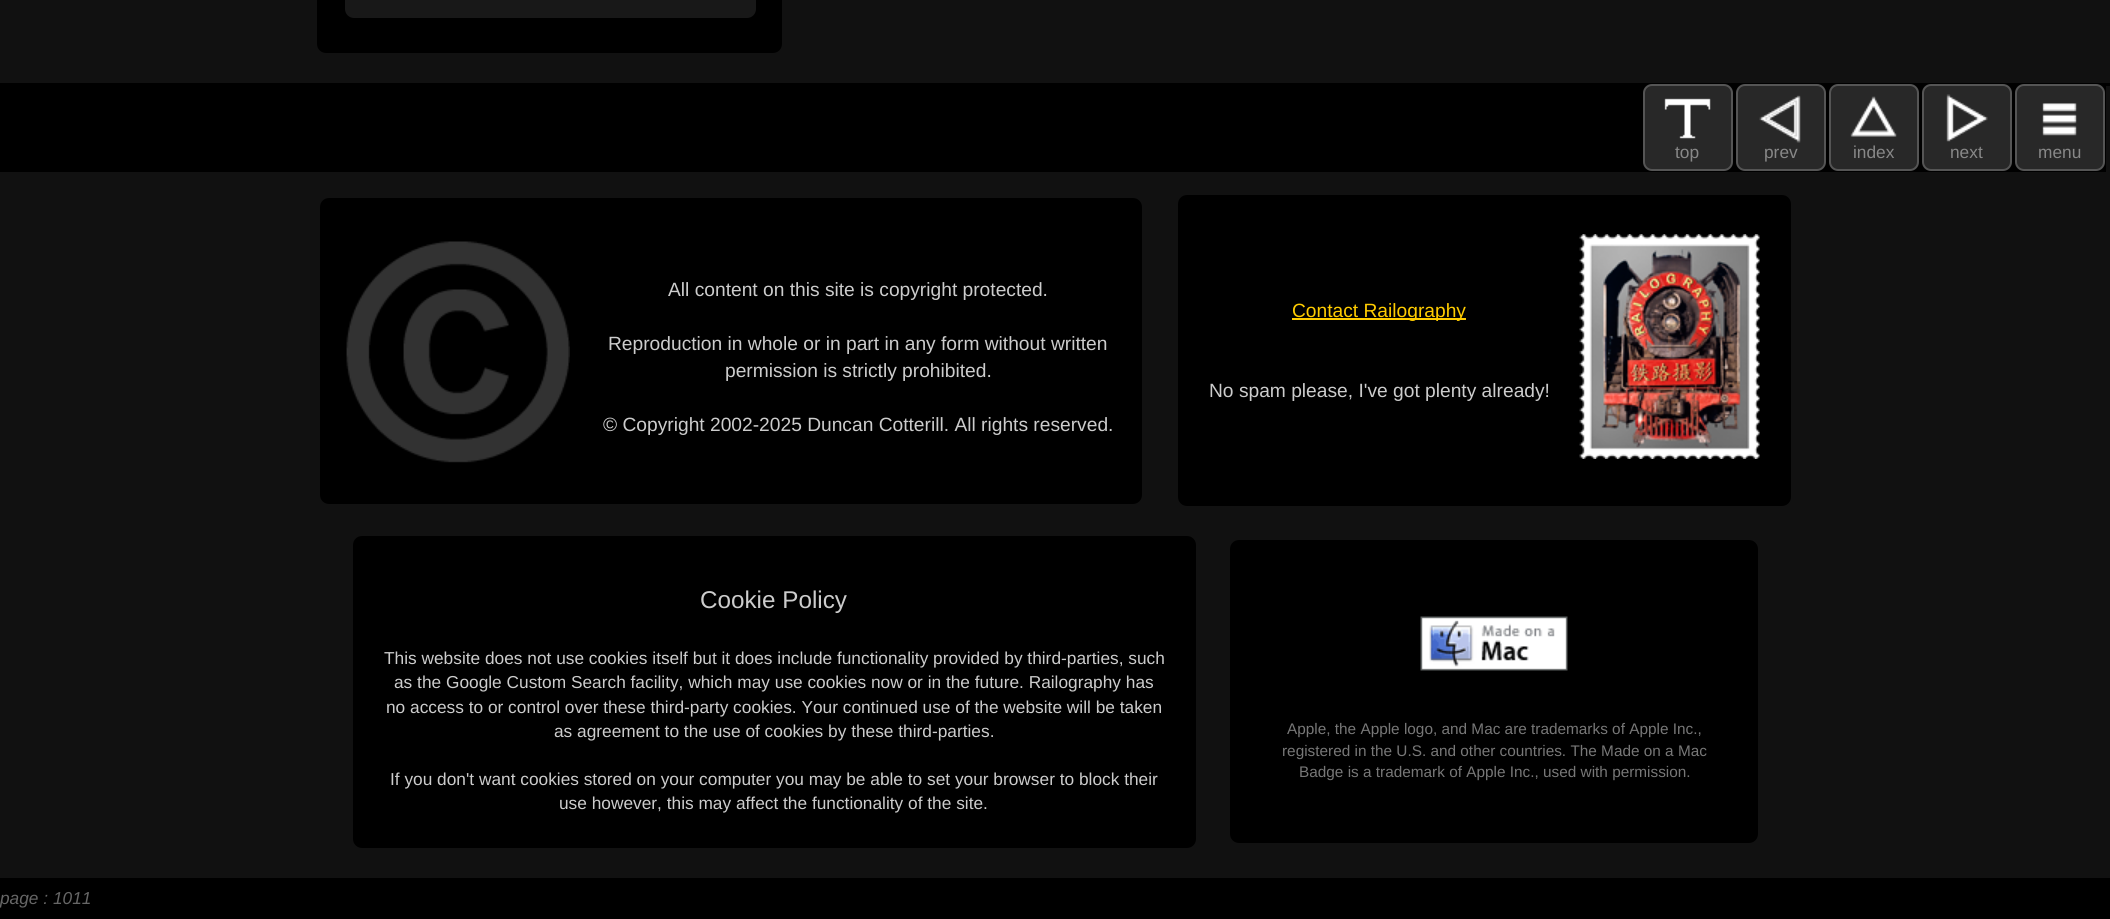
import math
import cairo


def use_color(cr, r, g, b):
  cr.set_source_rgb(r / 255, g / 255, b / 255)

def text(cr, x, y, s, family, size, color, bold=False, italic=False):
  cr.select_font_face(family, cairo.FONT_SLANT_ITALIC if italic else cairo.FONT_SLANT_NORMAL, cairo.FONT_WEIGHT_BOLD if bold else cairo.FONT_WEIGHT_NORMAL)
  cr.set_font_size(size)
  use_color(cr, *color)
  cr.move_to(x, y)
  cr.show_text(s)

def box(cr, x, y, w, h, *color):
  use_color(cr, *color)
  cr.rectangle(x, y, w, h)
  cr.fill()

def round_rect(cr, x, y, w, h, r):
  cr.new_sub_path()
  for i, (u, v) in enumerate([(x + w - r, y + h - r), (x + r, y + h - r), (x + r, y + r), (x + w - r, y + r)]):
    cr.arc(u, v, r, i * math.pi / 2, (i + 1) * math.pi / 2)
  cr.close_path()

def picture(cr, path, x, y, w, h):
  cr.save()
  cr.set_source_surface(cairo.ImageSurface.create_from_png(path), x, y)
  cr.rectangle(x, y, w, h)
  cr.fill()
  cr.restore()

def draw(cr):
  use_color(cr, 0, 0, 0)
  cr.paint()
  box(cr, 0, 0, 2110, 83, 17, 17, 17)
  use_color(cr, 0, 0, 0)
  round_rect(cr, 318, -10, 463, 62, 8)
  cr.fill_preserve()
  cr.stroke()
  use_color(cr, 24, 24, 24)
  round_rect(cr, 346, -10, 409, 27, 8)
  cr.fill_preserve()
  cr.stroke()
  box(cr, 0, 86, 2110, 792, 17, 17, 17)
  box(cr, 0, 86, 2106, 86, 0, 0, 0)
  use_color(cr, 40, 40, 40)
  round_rect(cr, 1644, 85, 88, 85, 8)
  cr.fill_preserve()
  use_color(cr, 85, 85, 85)
  cr.stroke()
  picture(cr, "img_01.png", 1664, 98, 47, 41)
  use_color(cr, 40, 40, 40)
  round_rect(cr, 1737, 85, 88, 85, 8)
  cr.fill_preserve()
  use_color(cr, 85, 85, 85)
  cr.stroke()
  picture(cr, "img_02.png", 1759, 95, 42, 48)
  use_color(cr, 40, 40, 40)
  round_rect(cr, 1830, 85, 88, 85, 8)
  cr.fill_preserve()
  use_color(cr, 85, 85, 85)
  cr.stroke()
  picture(cr, "img_03.png", 1850, 96, 47, 41)
  use_color(cr, 40, 40, 40)
  round_rect(cr, 1923, 85, 88, 85, 8)
  cr.fill_preserve()
  use_color(cr, 85, 85, 85)
  cr.stroke()
  picture(cr, "img_04.png", 1946, 94, 42, 48)
  use_color(cr, 40, 40, 40)
  round_rect(cr, 2016, 85, 88, 85, 8)
  cr.fill_preserve()
  use_color(cr, 85, 85, 85)
  cr.stroke()
  picture(cr, "img_05.png", 2042, 103, 35, 33)
  use_color(cr, 0, 0, 0)
  round_rect(cr, 321, 199, 820, 304, 8)
  cr.fill_preserve()
  cr.stroke()
  picture(cr, "img_06.png", 346, 241, 224, 222)
  round_rect(cr, 1179, 196, 611, 309, 8)
  cr.fill_preserve()
  cr.stroke()
  box(cr, 1292, 318, 174, 2, 255, 204, 0)
  picture(cr, "img_07.png", 1579, 234, 181, 225)
  use_color(cr, 0, 0, 0)
  round_rect(cr, 354, 537, 841, 310, 8)
  cr.fill_preserve()
  cr.stroke()
  round_rect(cr, 1231, 541, 526, 301, 8)
  cr.fill_preserve()
  cr.stroke()
  picture(cr, "img_08.png", 1420, 616, 148, 55)
  text(cr, 1675, 158, "top", "Liberation Sans", 17.3, (136, 136, 136))
  text(cr, 1764, 158, "prev", "Liberation Sans", 17.3, (136, 136, 136))
  text(cr, 1853, 158, "index", "Liberation Sans", 17.3, (136, 136, 136))
  text(cr, 1950, 158, "next", "Liberation Sans", 17.3, (136, 136, 136))
  text(cr, 2038, 158, "menu", "Liberation Sans", 17.3, (136, 136, 136))
  text(cr, 668, 296, "All content on this site is copyright protected.", "Liberation Sans", 19.2, (204, 204, 204))
  text(cr, 608, 350, "Reproduction in whole or in part in any form without written", "Liberation Sans", 19.2, (204, 204, 204))
  text(cr, 725, 377, "permission is strictly prohibited.", "Liberation Sans", 19.2, (204, 204, 204))
  text(cr, 603, 431, "© Copyright 2002-2025 Duncan Cotterill. All rights reserved.", "Liberation Sans", 19.2, (204, 204, 204))
  text(cr, 1292, 317, "Contact Railography", "Liberation Sans", 19.2, (255, 204, 0))
  text(cr, 1209, 397, "No spam please, I've got plenty already!", "Liberation Sans", 19.2, (204, 204, 204))
  text(cr, 700, 608, "Cookie Policy", "Liberation Sans", 24.25, (204, 204, 204))
  text(cr, 384, 664, "This website does not use cookies itself but it does include functionality provided by third-parties, such", "Liberation Sans", 17.3, (204, 204, 204))
  text(cr, 394, 688, "as the Google Custom Search facility, which may use cookies now or in the future. Railography has", "Liberation Sans", 17.3, (204, 204, 204))
  text(cr, 386, 713, "no access to or control over these third-party cookies. Your continued use of the website will be taken", "Liberation Sans", 17.3, (204, 204, 204))
  text(cr, 554, 737, "as agreement to the use of cookies by these third-parties.", "Liberation Sans", 17.3, (204, 204, 204))
  text(cr, 390, 785, "If you don't want cookies stored on your computer you may be able to set your browser to block their", "Liberation Sans", 17.3, (204, 204, 204))
  text(cr, 559, 809, "use however, this may affect the functionality of the site.", "Liberation Sans", 17.3, (204, 204, 204))
  text(cr, 1287, 734, "Apple, the Apple logo, and Mac are trademarks of Apple Inc.,", "Liberation Sans", 15.35, (119, 119, 119))
  text(cr, 1282, 756, "registered in the U.S. and other countries. The Made on a Mac", "Liberation Sans", 15.35, (119, 119, 119))
  text(cr, 1299, 777, "Badge is a trademark of Apple Inc., used with permission.", "Liberation Sans", 15.35, (119, 119, 119))
  text(cr, 0, 904, "page : 1011", "Liberation Sans", 17.3, (102, 102, 102), italic=True)


surface = cairo.ImageSurface(cairo.FORMAT_RGB24, 2110, 919)
cr = cairo.Context(surface)
options = cairo.FontOptions()
options.set_hint_metrics(cairo.HINT_METRICS_OFF)
options.set_hint_style(cairo.HINT_STYLE_NONE)
cr.set_font_options(options)
cr.set_miter_limit(4)
draw(cr)
surface.write_to_png("out.png")
